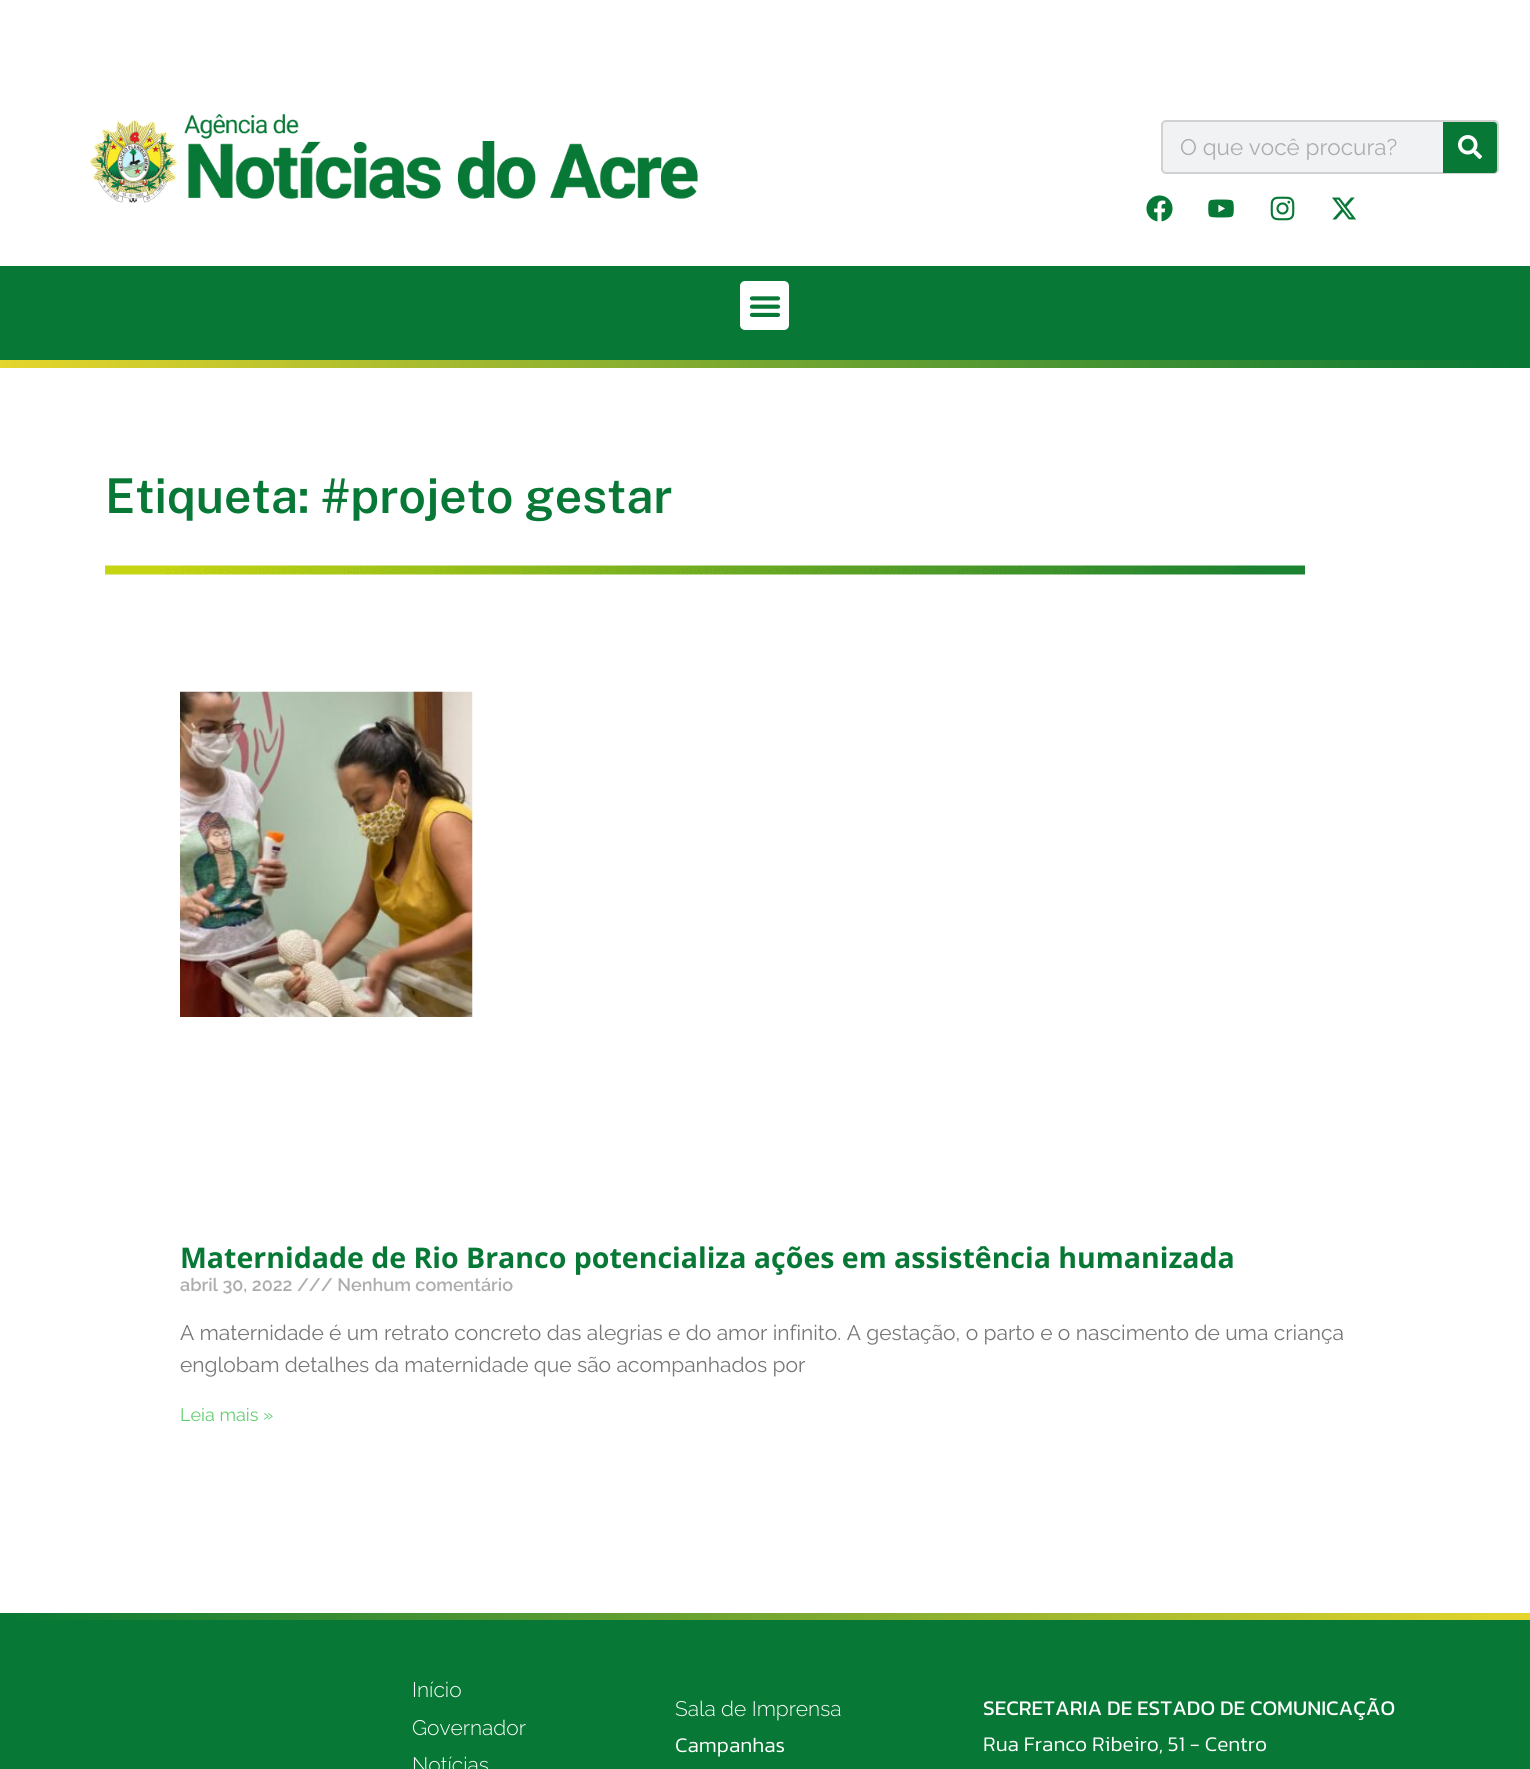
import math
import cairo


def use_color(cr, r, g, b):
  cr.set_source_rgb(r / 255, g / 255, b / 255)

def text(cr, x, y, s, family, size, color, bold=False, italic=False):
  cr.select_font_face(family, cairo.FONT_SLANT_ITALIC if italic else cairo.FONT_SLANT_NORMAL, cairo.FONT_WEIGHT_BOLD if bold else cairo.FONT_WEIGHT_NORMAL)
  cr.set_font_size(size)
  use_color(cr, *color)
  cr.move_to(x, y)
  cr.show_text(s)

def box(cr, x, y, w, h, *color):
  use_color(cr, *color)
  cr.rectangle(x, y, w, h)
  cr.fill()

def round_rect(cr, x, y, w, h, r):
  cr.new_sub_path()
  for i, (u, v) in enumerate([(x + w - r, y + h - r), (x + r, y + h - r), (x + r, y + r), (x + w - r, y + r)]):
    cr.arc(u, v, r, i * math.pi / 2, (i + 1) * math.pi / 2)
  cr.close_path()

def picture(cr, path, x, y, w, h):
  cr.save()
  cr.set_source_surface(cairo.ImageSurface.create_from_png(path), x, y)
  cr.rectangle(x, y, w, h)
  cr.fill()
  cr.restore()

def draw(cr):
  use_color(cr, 255, 255, 255)
  cr.paint()
  picture(cr, "img_01.png", 90, 114, 608, 89)
  use_color(cr, 241, 242, 243)
  round_rect(cr, 1162, 121, 336, 52, 4)
  cr.fill_preserve()
  use_color(cr, 209, 209, 209)
  cr.stroke()
  use_color(cr, 7, 120, 53)
  cr.new_path()
  cr.move_to(1443, 122)
  cr.line_to(1494, 122)
  cr.curve_to(1495.5, 122, 1497, 123.5, 1497, 125)
  cr.line_to(1497, 170)
  cr.curve_to(1497, 171.5, 1495.5, 173, 1494, 173)
  cr.line_to(1443, 173)
  cr.close_path()
  cr.fill()
  picture(cr, "img_02.png", 1458, 135, 24, 24)
  picture(cr, "img_03.png", 1146, 195, 27, 27)
  picture(cr, "img_04.png", 1208, 199, 26, 19)
  picture(cr, "img_05.png", 1270, 196, 25, 25)
  picture(cr, "img_06.png", 1332, 197, 24, 23)
  box(cr, 0, 266, 1530, 94, 7, 120, 53)
  use_color(cr, 255, 255, 255)
  round_rect(cr, 740, 281, 49, 49, 5)
  cr.fill()
  picture(cr, "img_07.png", 749, 296, 32, 21)
  gradient = cairo.LinearGradient(1530, 364, 0, 364)
  gradient.add_color_stop_rgba(0, 0.027, 0.471, 0.208, 1)
  gradient.add_color_stop_rgba(1, 0.898, 0.835, 0.173, 1)
  cr.set_source(gradient)
  cr.rectangle(0, 360, 1530, 8)
  cr.fill()
  picture(cr, "img_08.png", 105, 565, 1200, 10)
  picture(cr, "img_09.png", 180, 691, 293, 326)
  gradient = cairo.LinearGradient(0, 1616, 1530, 1616)
  gradient.add_color_stop_rgba(0, 0.027, 0.471, 0.208, 1)
  gradient.add_color_stop_rgba(1, 0.898, 0.835, 0.173, 1)
  cr.set_source(gradient)
  cr.rectangle(0, 1613, 1530, 7)
  cr.fill()
  box(cr, 0, 1620, 1530, 149, 7, 120, 53)
  text(cr, 1180, 155, "O que você procura?", "Raleway", 22.5, (173, 173, 173))
  text(cr, 105, 513, "Etiqueta: #projeto gestar", "Public Sans SemiBold", 48, (7, 120, 53))
  text(cr, 180, 1268, "Maternidade de Rio Branco potencializa ações em assistência humanizada", "Open Sans", 28.5, (7, 120, 53), bold=True)
  text(cr, 180, 1291, "abril 30, 2022 /// Nenhum comentário", "Raleway SemiBold", 18, (173, 173, 173))
  text(cr, 180, 1340, "A maternidade é um retrato concreto das alegrias e do amor infinito. A gestação, o parto e o nascimento de uma criança", "Raleway", 21, (119, 119, 119))
  text(cr, 180, 1372, "englobam detalhes da maternidade que são acompanhados por", "Raleway", 21, (119, 119, 119))
  text(cr, 180, 1421, "Leia mais »", "Raleway", 18, (97, 206, 112))
  text(cr, 412, 1697, "Início", "Raleway Light", 21, (255, 255, 255))
  text(cr, 412, 1735, "Governador", "Raleway Light", 21, (255, 255, 255))
  text(cr, 412, 1772, "Notícias", "Raleway Light", 21, (255, 255, 255))
  text(cr, 675, 1716, "Sala de Imprensa", "Raleway Light", 21, (255, 255, 255))
  text(cr, 675, 1752, "Campanhas", "Kanit Light", 21, (255, 255, 255))
  text(cr, 983, 1715, "SECRETARIA DE ESTADO DE COMUNICAÇÃO", "Kanit", 21, (255, 255, 255))
  text(cr, 983, 1751, "Rua Franco Ribeiro, 51 - Centro", "Kanit Light", 21, (255, 255, 255))


surface = cairo.ImageSurface(cairo.FORMAT_RGB24, 1530, 1769)
cr = cairo.Context(surface)
options = cairo.FontOptions()
options.set_hint_metrics(cairo.HINT_METRICS_OFF)
options.set_hint_style(cairo.HINT_STYLE_NONE)
cr.set_font_options(options)
cr.set_miter_limit(4)
draw(cr)
surface.write_to_png("out.png")
